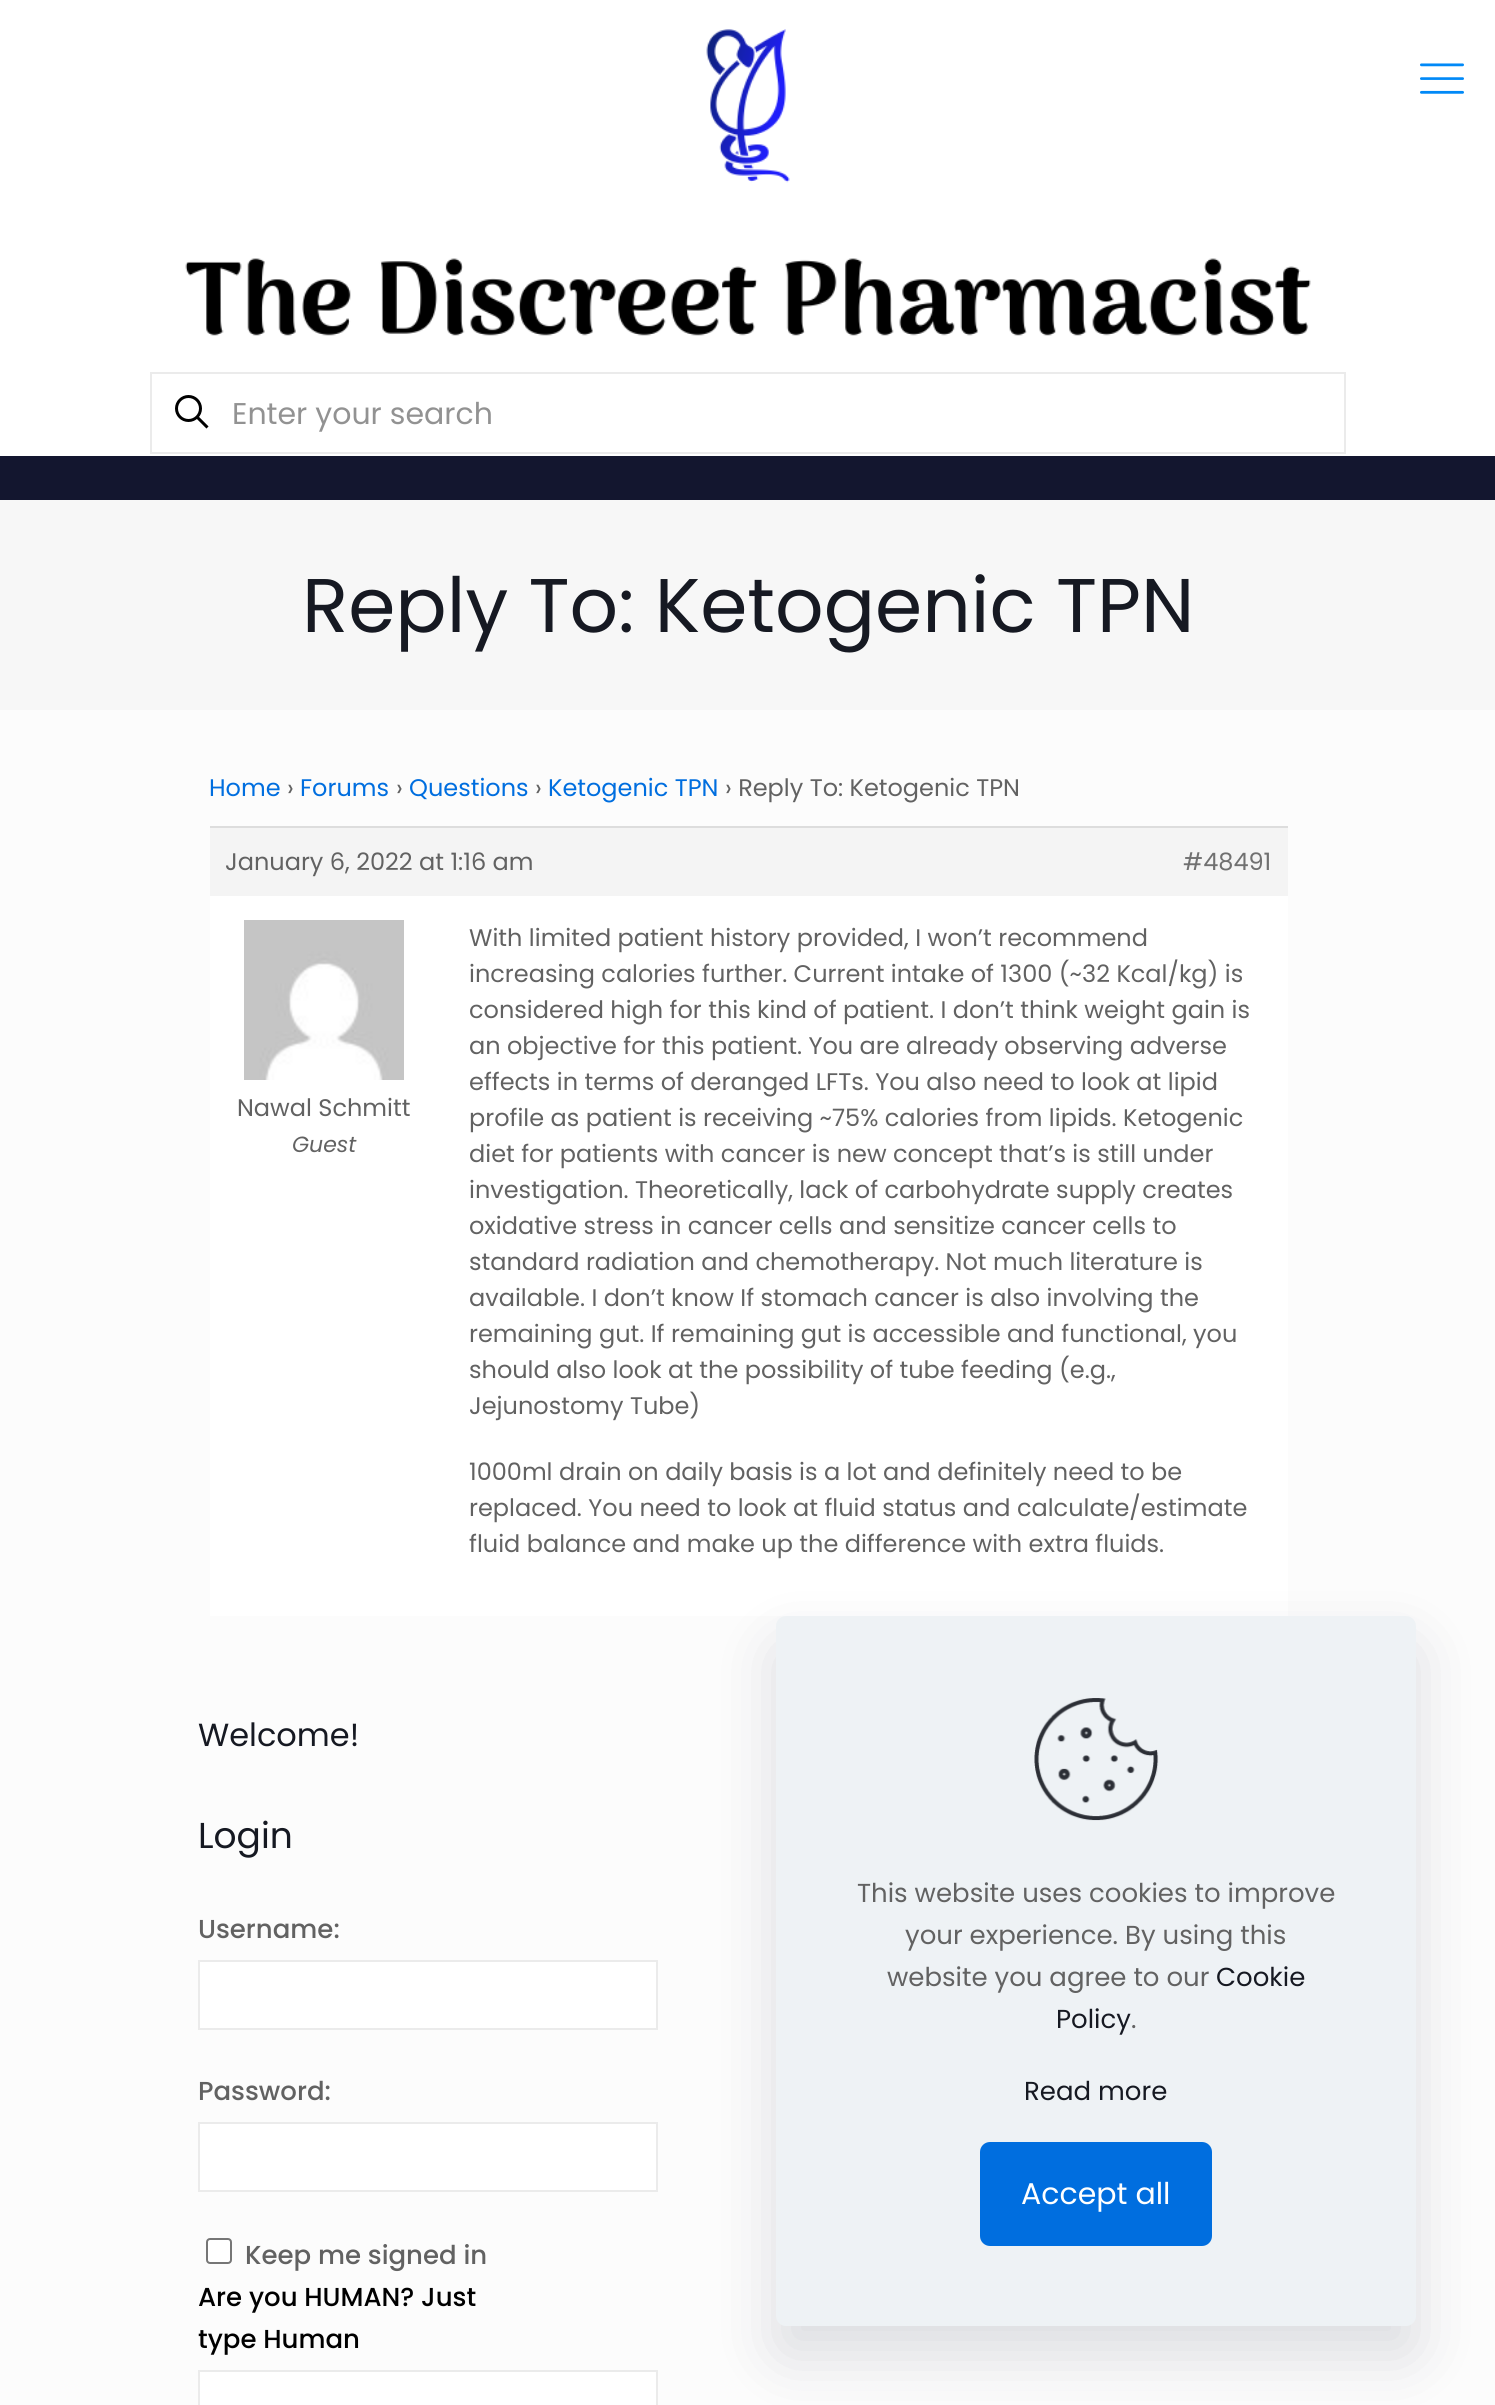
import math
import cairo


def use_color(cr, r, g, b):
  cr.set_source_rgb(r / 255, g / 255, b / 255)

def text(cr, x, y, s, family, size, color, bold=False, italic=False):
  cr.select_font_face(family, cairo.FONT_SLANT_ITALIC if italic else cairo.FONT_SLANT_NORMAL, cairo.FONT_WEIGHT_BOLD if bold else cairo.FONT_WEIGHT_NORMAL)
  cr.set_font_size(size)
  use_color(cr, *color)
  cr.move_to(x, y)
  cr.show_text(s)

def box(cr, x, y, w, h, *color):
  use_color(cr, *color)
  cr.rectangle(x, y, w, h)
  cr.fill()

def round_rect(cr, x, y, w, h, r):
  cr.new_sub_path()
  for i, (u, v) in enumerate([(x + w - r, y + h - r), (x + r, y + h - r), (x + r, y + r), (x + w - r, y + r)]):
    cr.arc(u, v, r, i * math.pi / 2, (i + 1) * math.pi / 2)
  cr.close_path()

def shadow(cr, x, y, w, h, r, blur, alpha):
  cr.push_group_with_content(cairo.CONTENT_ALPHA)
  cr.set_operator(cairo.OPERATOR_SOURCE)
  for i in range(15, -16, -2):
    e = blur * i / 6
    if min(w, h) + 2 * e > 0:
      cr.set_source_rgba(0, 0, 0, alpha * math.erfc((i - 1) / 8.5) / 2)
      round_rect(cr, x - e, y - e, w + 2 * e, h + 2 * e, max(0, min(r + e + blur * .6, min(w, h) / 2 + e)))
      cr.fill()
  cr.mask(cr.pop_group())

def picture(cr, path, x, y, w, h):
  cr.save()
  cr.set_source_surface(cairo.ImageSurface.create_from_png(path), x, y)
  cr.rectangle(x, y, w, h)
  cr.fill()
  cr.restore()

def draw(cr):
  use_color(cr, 252, 252, 252)
  cr.paint()
  box(cr, 0, 456, 1495, 44, 19, 22, 47)
  box(cr, 0, 0, 1495, 456, 255, 255, 255)
  picture(cr, "img_01.png", 185, 29, 1126, 307)
  picture(cr, "img_02.png", 1420, 63, 44, 31)
  cr.rectangle(151, 373, 1194, 80)
  use_color(cr, 235, 235, 235)
  cr.stroke()
  cr.arc(188.5, 408.5, 12, 0, 2 * math.pi)
  use_color(cr, 0, 0, 0)
  cr.set_line_width(3)
  cr.stroke()
  cr.new_path()
  cr.move_to(197, 417)
  cr.line_to(207.5, 427.5)
  cr.stroke()
  box(cr, 0, 500, 1495, 210, 247, 247, 247)
  box(cr, 210, 828, 1078, 68, 244, 244, 244)
  box(cr, 210, 826, 1078, 2, 221, 221, 221)
  box(cr, 210, 896, 1078, 720, 255, 255, 255)
  picture(cr, "img_03.png", 244, 920, 160, 160)
  cr.rectangle(199, 1961, 458, 68)
  cr.fill_preserve()
  use_color(cr, 235, 235, 235)
  cr.set_line_width(2)
  cr.stroke()
  use_color(cr, 255, 255, 255)
  cr.rectangle(199, 2123, 458, 68)
  cr.fill_preserve()
  use_color(cr, 235, 235, 235)
  cr.stroke()
  use_color(cr, 255, 255, 255)
  round_rect(cr, 207, 2239, 24, 24, 3)
  cr.fill_preserve()
  use_color(cr, 118, 118, 118)
  cr.stroke()
  use_color(cr, 255, 255, 255)
  cr.rectangle(199, 2371, 458, 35)
  cr.fill_preserve()
  use_color(cr, 235, 235, 235)
  cr.stroke()
  use_color(cr, 1, 7, 39)
  shadow(cr, 776, 1646, 640, 710, 10, 30, 0.13)
  use_color(cr, 238, 242, 245)
  round_rect(cr, 776, 1616, 640, 710, 10)
  cr.fill()
  picture(cr, "img_04.png", 1034, 1698, 125, 123)
  use_color(cr, 0, 110, 223)
  round_rect(cr, 980, 2142, 232, 104, 10)
  cr.fill()
  text(cr, 232, 424, "Enter your search", "Poppins", 30, (146, 146, 146))
  text(cr, 302, 632, "Reply To: Ketogenic TPN", "Poppins", 76, (22, 25, 34))
  text(cr, 209, 796, "Home", "Poppins", 24, (0, 110, 223))
  text(cr, 287, 796, "›", "Poppins", 24, (98, 98, 98))
  text(cr, 300, 796, "Forums", "Poppins", 24, (0, 110, 223))
  text(cr, 396, 796, "›", "Poppins", 24, (98, 98, 98))
  text(cr, 409, 796, "Questions", "Poppins", 24, (0, 110, 223))
  text(cr, 535, 796, "›", "Poppins", 24, (98, 98, 98))
  text(cr, 548, 796, "Ketogenic TPN", "Poppins", 24, (0, 110, 223))
  text(cr, 725, 796, "› Reply To: Ketogenic TPN", "Poppins", 24, (98, 98, 98))
  text(cr, 225, 870, "January 6, 2022 at 1:16 am", "Poppins", 24, (98, 98, 98))
  text(cr, 1183, 870, "#48491", "Poppins", 24, (112, 112, 112))
  text(cr, 237, 1116, "Nawal Schmitt", "Poppins", 24, (98, 98, 98))
  text(cr, 292, 1152, "Guest", "Poppins", 22, (98, 98, 98), italic=True)
  text(cr, 469, 946, "With limited patient history provided, I won’t recommend", "Poppins", 24, (98, 98, 98))
  text(cr, 469, 982, "increasing calories further. Current intake of 1300 (~32 Kcal/kg) is", "Poppins", 24, (98, 98, 98))
  text(cr, 469, 1018, "considered high for this kind of patient. I don’t think weight gain is", "Poppins", 24, (98, 98, 98))
  text(cr, 469, 1054, "an objective for this patient. You are already observing adverse", "Poppins", 24, (98, 98, 98))
  text(cr, 469, 1090, "effects in terms of deranged LFTs. You also need to look at lipid", "Poppins", 24, (98, 98, 98))
  text(cr, 469, 1126, "profile as patient is receiving ~75% calories from lipids. Ketogenic", "Poppins", 24, (98, 98, 98))
  text(cr, 469, 1162, "diet for patients with cancer is new concept that’s is still under", "Poppins", 24, (98, 98, 98))
  text(cr, 469, 1198, "investigation. Theoretically, lack of carbohydrate supply creates", "Poppins", 24, (98, 98, 98))
  text(cr, 469, 1234, "oxidative stress in cancer cells and sensitize cancer cells to", "Poppins", 24, (98, 98, 98))
  text(cr, 469, 1270, "standard radiation and chemotherapy. Not much literature is", "Poppins", 24, (98, 98, 98))
  text(cr, 469, 1306, "available. I don’t know If stomach cancer is also involving the", "Poppins", 24, (98, 98, 98))
  text(cr, 469, 1342, "remaining gut. If remaining gut is accessible and functional, you", "Poppins", 24, (98, 98, 98))
  text(cr, 469, 1378, "should also look at the possibility of tube feeding (e.g.,", "Poppins", 24, (98, 98, 98))
  text(cr, 469, 1414, "Jejunostomy Tube)", "Poppins", 24, (98, 98, 98))
  text(cr, 469, 1480, "1000ml drain on daily basis is a lot and definitely need to be", "Poppins", 24, (98, 98, 98))
  text(cr, 469, 1516, "replaced. You need to look at fluid status and calculate/estimate", "Poppins", 24, (98, 98, 98))
  text(cr, 469, 1552, "fluid balance and make up the difference with extra fluids.", "Poppins", 24, (98, 98, 98))
  text(cr, 198, 1746, "Welcome!", "Poppins", 32, (22, 25, 34))
  text(cr, 198, 1848, "Login", "Poppins", 36, (22, 25, 34))
  text(cr, 198, 1938, "Username:", "Poppins Medium", 26, (98, 98, 98))
  text(cr, 198, 2100, "Password:", "Poppins Medium", 26, (98, 98, 98))
  text(cr, 245, 2264, "Keep me signed in", "Poppins Medium", 26, (98, 98, 98))
  text(cr, 198, 2306, "Are you HUMAN? Just", "Poppins Medium", 26, (0, 0, 0))
  text(cr, 198, 2348, "type Human", "Poppins Medium", 26, (0, 0, 0))
  text(cr, 857, 1902, "This website uses cookies to improve", "Poppins", 26, (98, 98, 98))
  text(cr, 905, 1944, "your experience. By using this", "Poppins", 26, (98, 98, 98))
  text(cr, 887, 1986, "website you agree to our", "Poppins", 26, (98, 98, 98))
  text(cr, 1216, 1986, "Cookie", "Poppins", 26, (22, 25, 34))
  text(cr, 1056, 2028, "Policy", "Poppins", 26, (22, 25, 34))
  text(cr, 1131, 2028, ".", "Poppins", 26, (98, 98, 98))
  text(cr, 1024, 2100, "Read more", "Poppins", 26, (22, 25, 34))
  text(cr, 1021, 2204, "Accept all", "Poppins", 30, (255, 255, 255))


surface = cairo.ImageSurface(cairo.FORMAT_RGB24, 1495, 2405)
cr = cairo.Context(surface)
options = cairo.FontOptions()
options.set_hint_metrics(cairo.HINT_METRICS_OFF)
options.set_hint_style(cairo.HINT_STYLE_NONE)
cr.set_font_options(options)
cr.set_miter_limit(4)
draw(cr)
surface.write_to_png("out.png")
